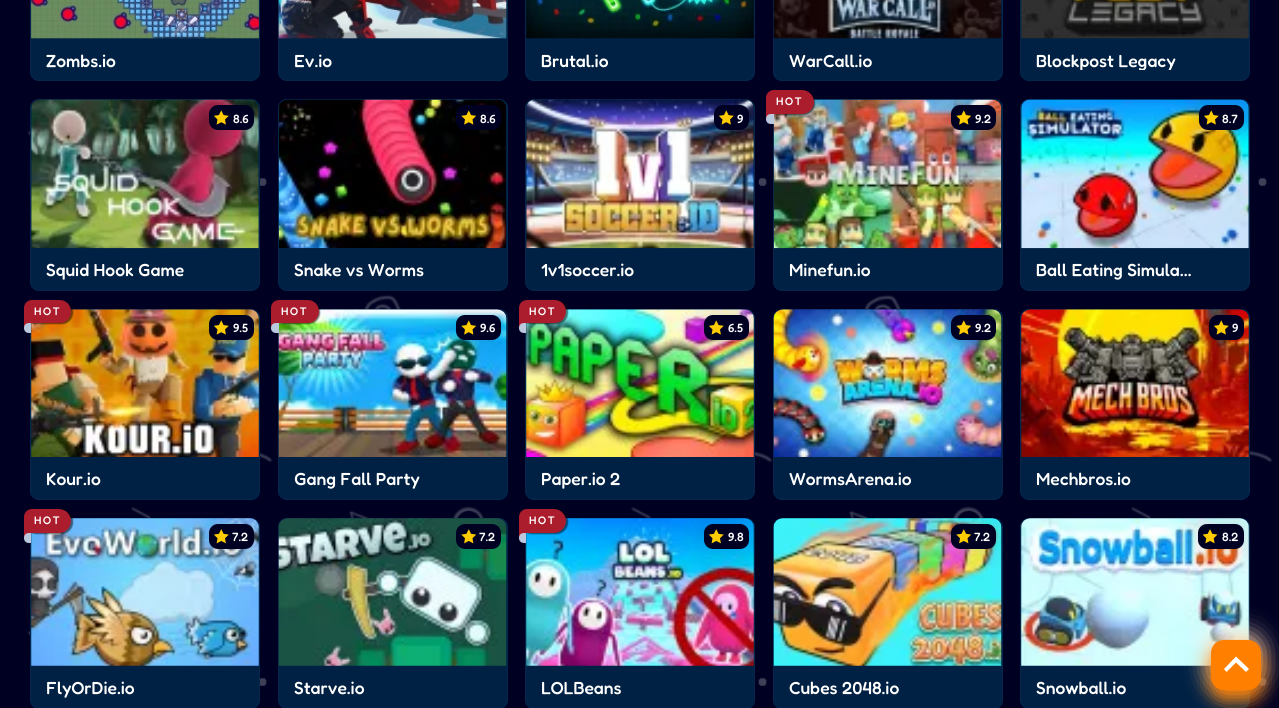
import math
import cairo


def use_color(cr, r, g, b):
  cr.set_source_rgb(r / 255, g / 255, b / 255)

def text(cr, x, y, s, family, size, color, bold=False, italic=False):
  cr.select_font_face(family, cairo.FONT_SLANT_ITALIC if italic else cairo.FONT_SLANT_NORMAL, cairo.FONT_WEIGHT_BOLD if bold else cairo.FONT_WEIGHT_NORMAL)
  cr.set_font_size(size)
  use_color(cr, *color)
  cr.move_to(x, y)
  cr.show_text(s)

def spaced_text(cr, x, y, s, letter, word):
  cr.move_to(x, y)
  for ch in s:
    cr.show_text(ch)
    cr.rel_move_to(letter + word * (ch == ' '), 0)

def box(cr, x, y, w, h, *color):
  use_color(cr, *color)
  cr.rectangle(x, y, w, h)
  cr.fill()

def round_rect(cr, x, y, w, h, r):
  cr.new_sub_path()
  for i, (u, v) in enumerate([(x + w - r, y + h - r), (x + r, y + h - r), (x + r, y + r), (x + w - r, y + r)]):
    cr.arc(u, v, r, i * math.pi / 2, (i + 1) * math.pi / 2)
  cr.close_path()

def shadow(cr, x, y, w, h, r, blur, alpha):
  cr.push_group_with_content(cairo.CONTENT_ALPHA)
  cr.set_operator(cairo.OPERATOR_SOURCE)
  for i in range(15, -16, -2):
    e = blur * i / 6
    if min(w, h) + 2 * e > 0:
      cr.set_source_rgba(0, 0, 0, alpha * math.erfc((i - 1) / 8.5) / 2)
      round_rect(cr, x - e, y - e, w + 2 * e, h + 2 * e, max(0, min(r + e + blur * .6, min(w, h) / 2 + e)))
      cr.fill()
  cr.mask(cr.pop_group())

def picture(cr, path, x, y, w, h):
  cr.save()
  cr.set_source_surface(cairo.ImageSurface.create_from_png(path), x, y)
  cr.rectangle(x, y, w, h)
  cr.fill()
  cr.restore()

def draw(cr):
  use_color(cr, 0, 1, 34)
  cr.paint()
  picture(cr, "img_01.png", 27, 130, 1246, 556)
  use_color(cr, 0, 33, 68)
  round_rect(cr, 30.5, -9.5, 229, 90, 8.5)
  cr.fill_preserve()
  use_color(cr, 3, 39, 77)
  cr.set_line_width(1)
  cr.stroke()
  picture(cr, "img_02.png", 31, 0, 228, 39)
  picture(cr, "img_03.png", 31, 0, 228, 39)
  use_color(cr, 0, 33, 68)
  round_rect(cr, 278.5, -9.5, 229, 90, 8.5)
  cr.fill_preserve()
  use_color(cr, 3, 39, 77)
  cr.stroke()
  picture(cr, "img_04.png", 278, 0, 229, 39)
  picture(cr, "img_05.png", 278, 0, 229, 39)
  use_color(cr, 0, 33, 68)
  round_rect(cr, 525.5, -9.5, 229, 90, 8.5)
  cr.fill_preserve()
  use_color(cr, 3, 39, 77)
  cr.stroke()
  picture(cr, "img_06.png", 526, 0, 228, 39)
  picture(cr, "img_07.png", 526, 0, 228, 38)
  use_color(cr, 0, 33, 68)
  round_rect(cr, 773.5, -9.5, 229, 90, 8.5)
  cr.fill_preserve()
  use_color(cr, 3, 39, 77)
  cr.stroke()
  picture(cr, "img_08.png", 773, 0, 229, 39)
  use_color(cr, 0, 33, 68)
  round_rect(cr, 1020.5, -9.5, 229, 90, 8.5)
  cr.fill_preserve()
  use_color(cr, 3, 39, 77)
  cr.stroke()
  picture(cr, "img_09.png", 1021, 0, 228, 39)
  use_color(cr, 0, 33, 68)
  round_rect(cr, 30.5, 99.5, 229, 191, 8.5)
  cr.fill_preserve()
  use_color(cr, 3, 39, 77)
  cr.stroke()
  picture(cr, "img_10.png", 31, 99, 228, 150)
  use_color(cr, 0, 33, 68)
  round_rect(cr, 278.5, 99.5, 229, 191, 8.5)
  cr.fill_preserve()
  use_color(cr, 3, 39, 77)
  cr.stroke()
  cr.save()
  cr.new_path()
  cr.move_to(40, 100)
  cr.line_to(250, 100)
  cr.curve_to(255, 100, 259, 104, 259, 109)
  cr.line_to(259, 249)
  cr.line_to(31, 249)
  cr.line_to(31, 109)
  cr.curve_to(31, 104, 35, 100, 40, 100)
  cr.close_path()
  cr.clip()
  use_color(cr, 0, 0, 0)
  shadow(cr, 209, 105, 45, 25, 9, 15, 0.13)
  cr.restore()
  use_color(cr, 0, 1, 34)
  round_rect(cr, 209, 105, 45, 25, 9)
  cr.fill()
  picture(cr, "img_11.png", 214, 110, 15, 15)
  picture(cr, "img_12.png", 278, 99, 229, 150)
  use_color(cr, 0, 33, 68)
  round_rect(cr, 525.5, 99.5, 229, 191, 8.5)
  cr.fill_preserve()
  use_color(cr, 3, 39, 77)
  cr.stroke()
  cr.save()
  cr.new_path()
  cr.move_to(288, 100)
  cr.line_to(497, 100)
  cr.curve_to(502, 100, 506, 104, 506, 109)
  cr.line_to(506, 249)
  cr.line_to(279, 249)
  cr.line_to(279, 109)
  cr.curve_to(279, 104, 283, 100, 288, 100)
  cr.close_path()
  cr.clip()
  use_color(cr, 0, 0, 0)
  shadow(cr, 456, 105, 45, 25, 9, 15, 0.13)
  cr.restore()
  use_color(cr, 0, 1, 34)
  round_rect(cr, 456, 105, 45, 25, 9)
  cr.fill()
  picture(cr, "img_13.png", 461, 110, 15, 15)
  picture(cr, "img_14.png", 526, 99, 228, 150)
  use_color(cr, 0, 33, 68)
  round_rect(cr, 773.5, 99.5, 229, 191, 8.5)
  cr.fill_preserve()
  use_color(cr, 3, 39, 77)
  cr.stroke()
  cr.save()
  cr.new_path()
  cr.move_to(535, 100)
  cr.line_to(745, 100)
  cr.curve_to(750, 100, 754, 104, 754, 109)
  cr.line_to(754, 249)
  cr.line_to(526, 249)
  cr.line_to(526, 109)
  cr.curve_to(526, 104, 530, 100, 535, 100)
  cr.close_path()
  cr.clip()
  use_color(cr, 0, 0, 0)
  shadow(cr, 714, 105, 35, 25, 9, 15, 0.13)
  cr.restore()
  use_color(cr, 0, 1, 34)
  round_rect(cr, 714, 105, 35, 25, 9)
  cr.fill()
  picture(cr, "img_11.png", 719, 110, 15, 15)
  picture(cr, "img_15.png", 773, 99, 229, 150)
  use_color(cr, 0, 0, 0)
  shadow(cr, 768, 91, 47, 24, 12, 0.5, 0.31)
  shadow(cr, 768, 91, 47, 24, 12, 0.5, 0.27)
  use_color(cr, 171, 28, 44)
  cr.new_path()
  cr.move_to(774, 90)
  cr.line_to(802, 90)
  cr.curve_to(808.5, 90, 814, 95.5, 814, 102)
  cr.curve_to(814, 108.5, 808.5, 114, 802, 114)
  cr.line_to(766, 114)
  cr.line_to(766, 98)
  cr.curve_to(766, 93.5, 769.5, 90, 774, 90)
  cr.close_path()
  cr.fill()
  box(cr, 766, 114, 5, 5, 171, 28, 44)
  use_color(cr, 186, 201, 222)
  cr.new_path()
  cr.move_to(771, 114)
  cr.line_to(774, 114)
  cr.line_to(774, 124)
  cr.line_to(771, 124)
  cr.curve_to(768, 124, 766, 122, 766, 119)
  cr.curve_to(766, 116, 768, 114, 771, 114)
  cr.close_path()
  cr.fill()
  use_color(cr, 0, 33, 68)
  round_rect(cr, 1020.5, 99.5, 229, 191, 8.5)
  cr.fill_preserve()
  use_color(cr, 3, 39, 77)
  cr.stroke()
  cr.save()
  cr.new_path()
  cr.move_to(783, 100)
  cr.line_to(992, 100)
  cr.curve_to(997, 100, 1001, 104, 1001, 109)
  cr.line_to(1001, 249)
  cr.line_to(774, 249)
  cr.line_to(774, 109)
  cr.curve_to(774, 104, 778, 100, 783, 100)
  cr.close_path()
  cr.clip()
  use_color(cr, 0, 0, 0)
  shadow(cr, 951, 105, 45, 25, 9, 15, 0.13)
  cr.restore()
  use_color(cr, 0, 1, 34)
  round_rect(cr, 951, 105, 45, 25, 9)
  cr.fill()
  picture(cr, "img_13.png", 956, 110, 15, 15)
  picture(cr, "img_16.png", 1021, 99, 228, 150)
  cr.save()
  cr.new_path()
  cr.move_to(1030, 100)
  cr.line_to(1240, 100)
  cr.curve_to(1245, 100, 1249, 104, 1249, 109)
  cr.line_to(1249, 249)
  cr.line_to(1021, 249)
  cr.line_to(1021, 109)
  cr.curve_to(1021, 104, 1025, 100, 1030, 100)
  cr.close_path()
  cr.clip()
  use_color(cr, 0, 0, 0)
  shadow(cr, 1199, 105, 45, 25, 9, 15, 0.13)
  cr.restore()
  round_rect(cr, 1199, 105, 45, 25, 9)
  cr.fill()
  picture(cr, "img_11.png", 1204, 110, 15, 15)
  use_color(cr, 0, 33, 68)
  round_rect(cr, 30.5, 309.5, 229, 190, 8.5)
  cr.fill_preserve()
  use_color(cr, 3, 39, 77)
  cr.stroke()
  picture(cr, "img_17.png", 31, 309, 228, 148)
  use_color(cr, 0, 0, 0)
  shadow(cr, 25, 301, 48, 23, 11.5, 0.5, 0.31)
  shadow(cr, 25, 301, 48, 23, 11.5, 0.5, 0.27)
  use_color(cr, 171, 28, 44)
  cr.new_path()
  cr.move_to(32, 300)
  cr.line_to(59.5, 300)
  cr.curve_to(66, 300, 71, 305, 71, 311.5)
  cr.curve_to(71, 318, 66, 323, 59.5, 323)
  cr.line_to(24, 323)
  cr.line_to(24, 308)
  cr.curve_to(24, 303.5, 27.5, 300, 32, 300)
  cr.close_path()
  cr.fill()
  box(cr, 24, 323, 5, 5, 171, 28, 44)
  use_color(cr, 186, 201, 222)
  cr.new_path()
  cr.move_to(29, 323)
  cr.line_to(31, 323)
  cr.line_to(31, 333)
  cr.line_to(29, 333)
  cr.curve_to(26, 333, 24, 331, 24, 328)
  cr.curve_to(24, 325, 26, 323, 29, 323)
  cr.close_path()
  cr.fill()
  use_color(cr, 0, 33, 68)
  round_rect(cr, 278.5, 309.5, 229, 190, 8.5)
  cr.fill_preserve()
  use_color(cr, 3, 39, 77)
  cr.stroke()
  cr.save()
  cr.new_path()
  cr.move_to(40, 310)
  cr.line_to(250, 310)
  cr.curve_to(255, 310, 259, 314, 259, 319)
  cr.line_to(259, 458)
  cr.line_to(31, 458)
  cr.line_to(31, 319)
  cr.curve_to(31, 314, 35, 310, 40, 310)
  cr.close_path()
  cr.clip()
  use_color(cr, 0, 0, 0)
  shadow(cr, 209, 315, 45, 25, 9, 15, 0.13)
  cr.restore()
  use_color(cr, 0, 1, 34)
  round_rect(cr, 209, 315, 45, 25, 9)
  cr.fill()
  picture(cr, "img_11.png", 214, 320, 15, 15)
  picture(cr, "img_18.png", 278, 309, 229, 148)
  use_color(cr, 0, 0, 0)
  shadow(cr, 273, 301, 47, 23, 11.5, 0.5, 0.31)
  shadow(cr, 273, 301, 47, 23, 11.5, 0.5, 0.27)
  use_color(cr, 171, 28, 44)
  cr.new_path()
  cr.move_to(279, 300)
  cr.line_to(307.5, 300)
  cr.curve_to(314, 300, 319, 305, 319, 311.5)
  cr.curve_to(319, 318, 314, 323, 307.5, 323)
  cr.line_to(271, 323)
  cr.line_to(271, 308)
  cr.curve_to(271, 303.5, 274.5, 300, 279, 300)
  cr.close_path()
  cr.fill()
  box(cr, 271, 323, 5, 5, 171, 28, 44)
  use_color(cr, 186, 201, 222)
  cr.new_path()
  cr.move_to(276, 323)
  cr.line_to(279, 323)
  cr.line_to(279, 333)
  cr.line_to(276, 333)
  cr.curve_to(273, 333, 271, 331, 271, 328)
  cr.curve_to(271, 325, 273, 323, 276, 323)
  cr.close_path()
  cr.fill()
  use_color(cr, 0, 33, 68)
  round_rect(cr, 525.5, 309.5, 229, 190, 8.5)
  cr.fill_preserve()
  use_color(cr, 3, 39, 77)
  cr.stroke()
  cr.save()
  cr.new_path()
  cr.move_to(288, 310)
  cr.line_to(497, 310)
  cr.curve_to(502, 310, 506, 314, 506, 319)
  cr.line_to(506, 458)
  cr.line_to(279, 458)
  cr.line_to(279, 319)
  cr.curve_to(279, 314, 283, 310, 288, 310)
  cr.close_path()
  cr.clip()
  use_color(cr, 0, 0, 0)
  shadow(cr, 456, 315, 45, 25, 9, 15, 0.13)
  cr.restore()
  use_color(cr, 0, 1, 34)
  round_rect(cr, 456, 315, 45, 25, 9)
  cr.fill()
  picture(cr, "img_13.png", 461, 320, 15, 15)
  picture(cr, "img_19.png", 526, 309, 228, 148)
  use_color(cr, 0, 0, 0)
  shadow(cr, 520, 301, 48, 23, 11.5, 0.5, 0.31)
  shadow(cr, 520, 301, 48, 23, 11.5, 0.5, 0.27)
  use_color(cr, 171, 28, 44)
  cr.new_path()
  cr.move_to(527, 300)
  cr.line_to(554.5, 300)
  cr.curve_to(561, 300, 566, 305, 566, 311.5)
  cr.curve_to(566, 318, 561, 323, 554.5, 323)
  cr.line_to(519, 323)
  cr.line_to(519, 308)
  cr.curve_to(519, 303.5, 522.5, 300, 527, 300)
  cr.close_path()
  cr.fill()
  box(cr, 519, 323, 5, 5, 171, 28, 44)
  use_color(cr, 186, 201, 222)
  cr.new_path()
  cr.move_to(524, 323)
  cr.line_to(526, 323)
  cr.line_to(526, 333)
  cr.line_to(524, 333)
  cr.curve_to(521, 333, 519, 331, 519, 328)
  cr.curve_to(519, 325, 521, 323, 524, 323)
  cr.close_path()
  cr.fill()
  use_color(cr, 0, 33, 68)
  round_rect(cr, 773.5, 309.5, 229, 190, 8.5)
  cr.fill_preserve()
  use_color(cr, 3, 39, 77)
  cr.stroke()
  cr.save()
  cr.new_path()
  cr.move_to(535, 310)
  cr.line_to(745, 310)
  cr.curve_to(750, 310, 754, 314, 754, 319)
  cr.line_to(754, 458)
  cr.line_to(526, 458)
  cr.line_to(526, 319)
  cr.curve_to(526, 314, 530, 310, 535, 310)
  cr.close_path()
  cr.clip()
  use_color(cr, 0, 0, 0)
  shadow(cr, 704, 315, 45, 25, 9, 15, 0.13)
  cr.restore()
  use_color(cr, 0, 1, 34)
  round_rect(cr, 704, 315, 45, 25, 9)
  cr.fill()
  picture(cr, "img_11.png", 709, 320, 15, 15)
  picture(cr, "img_20.png", 773, 309, 229, 148)
  use_color(cr, 0, 33, 68)
  round_rect(cr, 1020.5, 309.5, 229, 190, 8.5)
  cr.fill_preserve()
  use_color(cr, 3, 39, 77)
  cr.stroke()
  cr.save()
  cr.new_path()
  cr.move_to(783, 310)
  cr.line_to(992, 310)
  cr.curve_to(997, 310, 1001, 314, 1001, 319)
  cr.line_to(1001, 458)
  cr.line_to(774, 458)
  cr.line_to(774, 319)
  cr.curve_to(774, 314, 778, 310, 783, 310)
  cr.close_path()
  cr.clip()
  use_color(cr, 0, 0, 0)
  shadow(cr, 951, 315, 45, 25, 9, 15, 0.13)
  cr.restore()
  use_color(cr, 0, 1, 34)
  round_rect(cr, 951, 315, 45, 25, 9)
  cr.fill()
  picture(cr, "img_13.png", 956, 320, 15, 15)
  picture(cr, "img_21.png", 1021, 309, 228, 148)
  cr.save()
  cr.new_path()
  cr.move_to(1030, 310)
  cr.line_to(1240, 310)
  cr.curve_to(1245, 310, 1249, 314, 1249, 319)
  cr.line_to(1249, 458)
  cr.line_to(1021, 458)
  cr.line_to(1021, 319)
  cr.curve_to(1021, 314, 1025, 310, 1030, 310)
  cr.close_path()
  cr.clip()
  use_color(cr, 0, 0, 0)
  shadow(cr, 1209, 315, 35, 25, 9, 15, 0.13)
  cr.restore()
  round_rect(cr, 1209, 315, 35, 25, 9)
  cr.fill()
  picture(cr, "img_11.png", 1214, 320, 15, 15)
  use_color(cr, 0, 33, 68)
  round_rect(cr, 30.5, 518.5, 229, 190, 8.5)
  cr.fill_preserve()
  use_color(cr, 3, 39, 77)
  cr.stroke()
  picture(cr, "img_22.png", 31, 518, 228, 148)
  use_color(cr, 0, 0, 0)
  shadow(cr, 25, 510, 48, 24, 12, 0.5, 0.31)
  shadow(cr, 25, 510, 48, 24, 12, 0.5, 0.27)
  use_color(cr, 171, 28, 44)
  cr.new_path()
  cr.move_to(32, 509)
  cr.line_to(59, 509)
  cr.curve_to(65.5, 509, 71, 514.5, 71, 521)
  cr.curve_to(71, 527.5, 65.5, 533, 59, 533)
  cr.line_to(24, 533)
  cr.line_to(24, 517)
  cr.curve_to(24, 512.5, 27.5, 509, 32, 509)
  cr.close_path()
  cr.fill()
  box(cr, 24, 533, 5, 5, 171, 28, 44)
  use_color(cr, 186, 201, 222)
  cr.new_path()
  cr.move_to(29, 533)
  cr.line_to(31, 533)
  cr.line_to(31, 543)
  cr.line_to(29, 543)
  cr.curve_to(26, 543, 24, 541, 24, 538)
  cr.curve_to(24, 535, 26, 533, 29, 533)
  cr.close_path()
  cr.fill()
  use_color(cr, 0, 33, 68)
  round_rect(cr, 278.5, 518.5, 229, 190, 8.5)
  cr.fill_preserve()
  use_color(cr, 3, 39, 77)
  cr.stroke()
  cr.save()
  cr.new_path()
  cr.move_to(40, 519)
  cr.line_to(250, 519)
  cr.curve_to(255, 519, 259, 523, 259, 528)
  cr.line_to(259, 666)
  cr.line_to(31, 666)
  cr.line_to(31, 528)
  cr.curve_to(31, 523, 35, 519, 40, 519)
  cr.close_path()
  cr.clip()
  use_color(cr, 0, 0, 0)
  shadow(cr, 209, 524, 45, 25, 9, 15, 0.13)
  cr.restore()
  use_color(cr, 0, 1, 34)
  round_rect(cr, 209, 524, 45, 25, 9)
  cr.fill()
  picture(cr, "img_23.png", 214, 529, 15, 15)
  picture(cr, "img_24.png", 278, 518, 229, 148)
  round_rect(cr, 456, 524, 45, 25, 9)
  cr.fill()
  picture(cr, "img_25.png", 461, 529, 15, 15)
  use_color(cr, 0, 33, 68)
  round_rect(cr, 525.5, 518.5, 229, 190, 8.5)
  cr.fill_preserve()
  use_color(cr, 3, 39, 77)
  cr.stroke()
  picture(cr, "img_26.png", 526, 518, 228, 148)
  use_color(cr, 0, 0, 0)
  shadow(cr, 520, 510, 48, 24, 12, 0.5, 0.31)
  shadow(cr, 520, 510, 48, 24, 12, 0.5, 0.27)
  use_color(cr, 171, 28, 44)
  cr.new_path()
  cr.move_to(527, 509)
  cr.line_to(554, 509)
  cr.curve_to(560.5, 509, 566, 514.5, 566, 521)
  cr.curve_to(566, 527.5, 560.5, 533, 554, 533)
  cr.line_to(519, 533)
  cr.line_to(519, 517)
  cr.curve_to(519, 512.5, 522.5, 509, 527, 509)
  cr.close_path()
  cr.fill()
  box(cr, 519, 533, 5, 5, 171, 28, 44)
  use_color(cr, 186, 201, 222)
  cr.new_path()
  cr.move_to(524, 533)
  cr.line_to(526, 533)
  cr.line_to(526, 543)
  cr.line_to(524, 543)
  cr.curve_to(521, 543, 519, 541, 519, 538)
  cr.curve_to(519, 535, 521, 533, 524, 533)
  cr.close_path()
  cr.fill()
  use_color(cr, 0, 33, 68)
  round_rect(cr, 773.5, 518.5, 229, 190, 8.5)
  cr.fill_preserve()
  use_color(cr, 3, 39, 77)
  cr.stroke()
  cr.save()
  cr.new_path()
  cr.move_to(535, 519)
  cr.line_to(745, 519)
  cr.curve_to(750, 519, 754, 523, 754, 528)
  cr.line_to(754, 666)
  cr.line_to(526, 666)
  cr.line_to(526, 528)
  cr.curve_to(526, 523, 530, 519, 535, 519)
  cr.close_path()
  cr.clip()
  use_color(cr, 0, 0, 0)
  shadow(cr, 704, 524, 45, 25, 9, 15, 0.13)
  cr.restore()
  use_color(cr, 0, 1, 34)
  round_rect(cr, 704, 524, 45, 25, 9)
  cr.fill()
  picture(cr, "img_23.png", 709, 529, 15, 15)
  picture(cr, "img_27.png", 773, 518, 229, 148)
  use_color(cr, 0, 33, 68)
  round_rect(cr, 1020.5, 518.5, 229, 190, 8.5)
  cr.fill_preserve()
  use_color(cr, 3, 39, 77)
  cr.stroke()
  cr.save()
  cr.new_path()
  cr.move_to(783, 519)
  cr.line_to(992, 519)
  cr.curve_to(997, 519, 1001, 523, 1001, 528)
  cr.line_to(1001, 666)
  cr.line_to(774, 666)
  cr.line_to(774, 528)
  cr.curve_to(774, 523, 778, 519, 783, 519)
  cr.close_path()
  cr.clip()
  use_color(cr, 0, 0, 0)
  shadow(cr, 951, 524, 45, 25, 9, 15, 0.13)
  cr.restore()
  use_color(cr, 0, 1, 34)
  round_rect(cr, 951, 524, 45, 25, 9)
  cr.fill()
  picture(cr, "img_25.png", 956, 529, 15, 15)
  picture(cr, "img_28.png", 1021, 518, 228, 148)
  cr.save()
  cr.new_path()
  cr.move_to(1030, 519)
  cr.line_to(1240, 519)
  cr.curve_to(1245, 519, 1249, 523, 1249, 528)
  cr.line_to(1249, 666)
  cr.line_to(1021, 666)
  cr.line_to(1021, 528)
  cr.curve_to(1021, 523, 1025, 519, 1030, 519)
  cr.close_path()
  cr.clip()
  use_color(cr, 0, 0, 0)
  shadow(cr, 1198, 524, 46, 25, 9, 15, 0.13)
  cr.restore()
  round_rect(cr, 1198, 524, 46, 25, 9)
  cr.fill()
  picture(cr, "img_29.png", 1203, 529, 15, 15)
  use_color(cr, 255, 227, 199)
  shadow(cr, 1211, 635, 50, 50, 13, 12.5, 1)
  use_color(cr, 255, 127, 0)
  shadow(cr, 1211, 650, 50, 50, 13, 9.5, 1)
  use_color(cr, 255, 127, 0)
  round_rect(cr, 1211, 640, 50, 50, 13)
  cr.fill()
  use_color(cr, 255, 255, 255)
  cr.new_path()
  cr.move_to(1226.5, 672)
  cr.line_to(1224, 669)
  cr.line_to(1236, 656.5)
  cr.line_to(1249, 669)
  cr.line_to(1246, 672)
  cr.line_to(1236, 662.5)
  cr.close_path()
  cr.fill()
  text(cr, 46, 67, "Zombs.io", "Fredoka Medium", 17.5, (255, 255, 255))
  text(cr, 294, 67, "Ev.io", "Fredoka Medium", 17.5, (255, 255, 255))
  text(cr, 541, 67, "Brutal.io", "Fredoka Medium", 17.5, (255, 255, 255))
  text(cr, 789, 67, "WarCall.io", "Fredoka Medium", 17.5, (255, 255, 255))
  cr.save()
  cr.rectangle(1036, 49, 158, 21)
  cr.clip()
  text(cr, 1036, 67, "Blockpost Legacy", "Fredoka Medium", 17.5, (255, 255, 255))
  cr.restore()
  text(cr, 233, 123, "8.6", "Fredoka Medium", 12, (255, 255, 255))
  text(cr, 46, 276, "Squid Hook Game", "Fredoka Medium", 17.5, (255, 255, 255))
  text(cr, 480, 123, "8.6", "Fredoka Medium", 12, (255, 255, 255))
  text(cr, 294, 276, "Snake vs Worms", "Fredoka Medium", 17.5, (255, 255, 255))
  text(cr, 737, 123, "9", "Fredoka Medium", 12, (255, 255, 255))
  text(cr, 541, 276, "1v1soccer.io", "Fredoka Medium", 17.5, (255, 255, 255))
  cr.set_font_size(11)
  spaced_text(cr, 776, 105, "HOT", 1.5, 0)
  text(cr, 975, 123, "9.2", "Fredoka Medium", 12, (255, 255, 255))
  text(cr, 789, 276, "Minefun.io", "Fredoka Medium", 17.5, (255, 255, 255))
  text(cr, 1222, 123, "8.7", "Fredoka Medium", 12, (255, 255, 255))
  text(cr, 1036, 276, "Ball Eating Simula…", "Fredoka Medium", 17.5, (255, 255, 255))
  cr.set_font_size(11)
  spaced_text(cr, 34, 315, "HOT", 1.5, 0)
  text(cr, 233, 332, "9.5", "Fredoka Medium", 12, (255, 255, 255))
  text(cr, 46, 485, "Kour.io", "Fredoka Medium", 17.5, (255, 255, 255))
  cr.set_font_size(11)
  spaced_text(cr, 281, 315, "HOT", 1.5, 0)
  text(cr, 480, 332, "9.6", "Fredoka Medium", 12, (255, 255, 255))
  text(cr, 294, 485, "Gang Fall Party", "Fredoka Medium", 17.5, (255, 255, 255))
  cr.set_font_size(11)
  spaced_text(cr, 529, 315, "HOT", 1.5, 0)
  text(cr, 728, 332, "6.5", "Fredoka Medium", 12, (255, 255, 255))
  text(cr, 541, 485, "Paper.io 2", "Fredoka Medium", 17.5, (255, 255, 255))
  text(cr, 975, 332, "9.2", "Fredoka Medium", 12, (255, 255, 255))
  text(cr, 789, 485, "WormsArena.io", "Fredoka Medium", 17.5, (255, 255, 255))
  text(cr, 1232, 332, "9", "Fredoka Medium", 12, (255, 255, 255))
  text(cr, 1036, 485, "Mechbros.io", "Fredoka Medium", 17.5, (255, 255, 255))
  cr.set_font_size(11)
  spaced_text(cr, 34, 524, "HOT", 1.5, 0)
  text(cr, 232, 541, "7.2", "Fredoka Medium", 12, (255, 255, 255))
  text(cr, 46, 694, "FlyOrDie.io", "Fredoka Medium", 17.5, (255, 255, 255))
  text(cr, 479, 541, "7.2", "Fredoka Medium", 12, (255, 255, 255))
  text(cr, 294, 694, "Starve.io", "Fredoka Medium", 17.5, (255, 255, 255))
  cr.set_font_size(11)
  spaced_text(cr, 529, 524, "HOT", 1.5, 0)
  text(cr, 728, 541, "9.8", "Fredoka Medium", 12, (255, 255, 255))
  text(cr, 541, 694, "LOLBeans", "Fredoka Medium", 17.5, (255, 255, 255))
  text(cr, 974, 541, "7.2", "Fredoka Medium", 12, (255, 255, 255))
  text(cr, 789, 694, "Cubes 2048.io", "Fredoka Medium", 17.5, (255, 255, 255))
  text(cr, 1222, 541, "8.2", "Fredoka Medium", 12, (255, 255, 255))
  text(cr, 1036, 694, "Snowball.io", "Fredoka Medium", 17.5, (255, 255, 255))


surface = cairo.ImageSurface(cairo.FORMAT_RGB24, 1279, 708)
cr = cairo.Context(surface)
options = cairo.FontOptions()
options.set_hint_metrics(cairo.HINT_METRICS_OFF)
options.set_hint_style(cairo.HINT_STYLE_NONE)
cr.set_font_options(options)
cr.set_miter_limit(4)
draw(cr)
surface.write_to_png("out.png")
